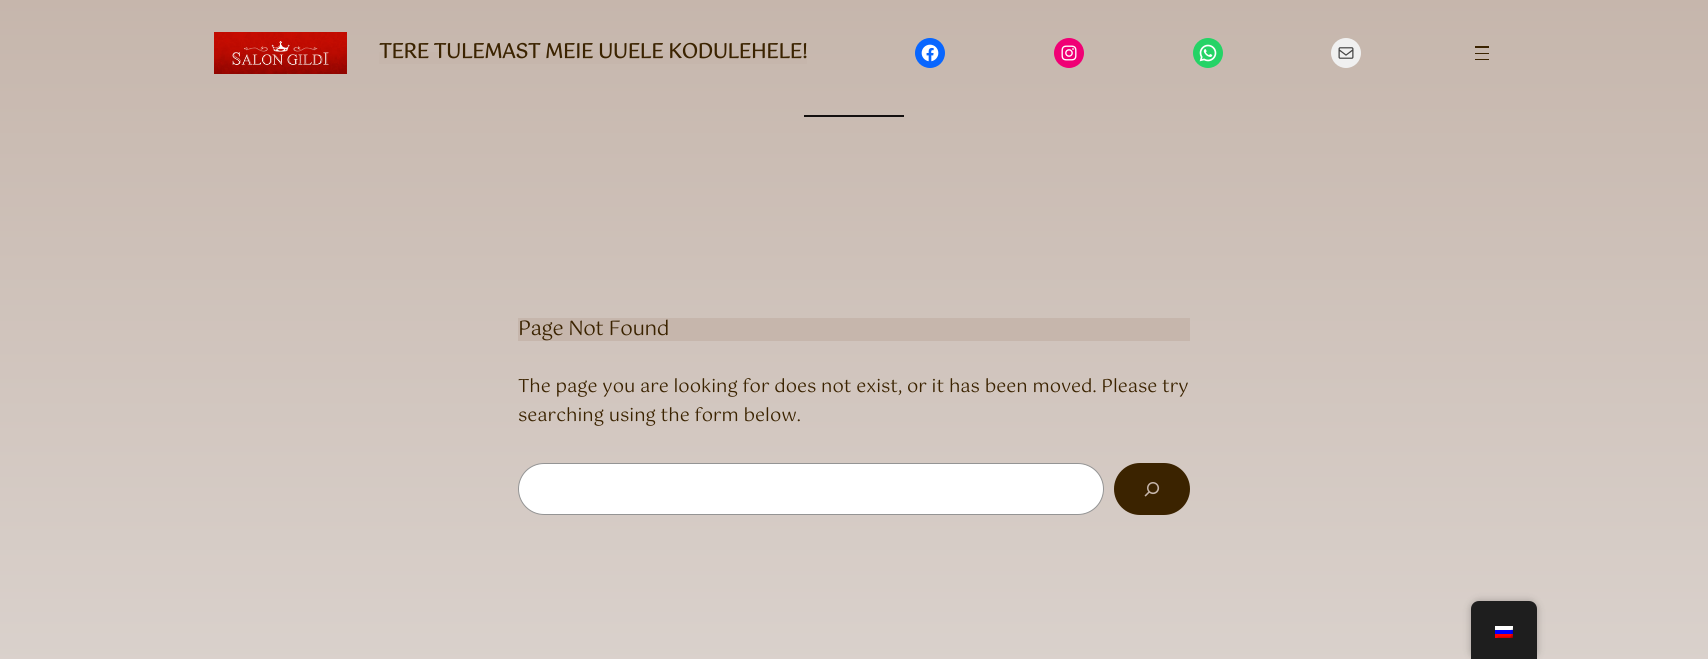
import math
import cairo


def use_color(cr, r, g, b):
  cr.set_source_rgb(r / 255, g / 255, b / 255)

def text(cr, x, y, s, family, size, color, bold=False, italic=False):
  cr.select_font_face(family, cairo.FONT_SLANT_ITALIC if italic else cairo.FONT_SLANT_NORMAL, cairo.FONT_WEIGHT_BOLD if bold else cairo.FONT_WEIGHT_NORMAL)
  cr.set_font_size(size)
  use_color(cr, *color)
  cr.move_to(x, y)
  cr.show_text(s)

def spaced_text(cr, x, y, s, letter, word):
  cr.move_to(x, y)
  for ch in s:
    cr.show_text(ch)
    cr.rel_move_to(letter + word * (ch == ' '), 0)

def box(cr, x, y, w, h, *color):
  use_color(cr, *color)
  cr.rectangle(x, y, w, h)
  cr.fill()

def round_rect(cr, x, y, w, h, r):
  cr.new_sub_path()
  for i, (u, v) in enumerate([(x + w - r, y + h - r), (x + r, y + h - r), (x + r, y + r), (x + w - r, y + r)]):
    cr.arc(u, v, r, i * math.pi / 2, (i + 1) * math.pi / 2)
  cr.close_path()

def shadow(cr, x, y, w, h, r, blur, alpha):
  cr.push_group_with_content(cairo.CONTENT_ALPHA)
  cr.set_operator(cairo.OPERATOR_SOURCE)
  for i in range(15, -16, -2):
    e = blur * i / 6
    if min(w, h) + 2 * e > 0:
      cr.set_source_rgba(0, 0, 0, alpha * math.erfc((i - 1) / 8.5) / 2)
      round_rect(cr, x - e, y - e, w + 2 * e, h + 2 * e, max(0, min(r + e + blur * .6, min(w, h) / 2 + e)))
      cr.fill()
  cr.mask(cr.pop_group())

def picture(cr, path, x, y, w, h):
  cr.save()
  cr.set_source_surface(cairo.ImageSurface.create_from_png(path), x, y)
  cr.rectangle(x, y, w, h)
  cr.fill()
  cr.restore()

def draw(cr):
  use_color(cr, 255, 255, 255)
  cr.paint()
  gradient = cairo.LinearGradient(854, 0, 854, 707)
  gradient.add_color_stop_rgba(0, 0.776, 0.714, 0.675, 1)
  gradient.add_color_stop_rgba(1, 0.859, 0.827, 0.808, 1)
  cr.set_source(gradient)
  cr.rectangle(0, 0, 1708, 659)
  cr.fill()
  picture(cr, "img_01.png", 214, 32, 133, 42)
  box(cr, 379, 52, 428, 12, 198, 182, 172)
  use_color(cr, 8, 102, 255)
  cr.arc(930, 53, 15, 0, 2 * math.pi)
  cr.fill()
  picture(cr, "img_02.png", 921, 44, 18, 18)
  use_color(cr, 240, 0, 117)
  cr.arc(1069, 53, 15, 0, 2 * math.pi)
  cr.fill()
  picture(cr, "img_03.png", 1061, 45, 16, 16)
  use_color(cr, 37, 211, 102)
  cr.arc(1208, 53, 15, 0, 2 * math.pi)
  cr.fill()
  picture(cr, "img_04.png", 1199, 44, 18, 18)
  use_color(cr, 240, 240, 240)
  cr.arc(1346, 53, 15, 0, 2 * math.pi)
  cr.fill()
  picture(cr, "img_05.png", 1338, 47, 16, 12)
  box(cr, 1475, 46, 14, 2, 59, 35, 0)
  box(cr, 1475, 53, 14, 1, 59, 35, 0)
  box(cr, 1475, 59, 14, 1, 59, 35, 0)
  box(cr, 804, 115, 100, 2, 19, 16, 15)
  box(cr, 518, 318, 672, 23, 198, 182, 172)
  use_color(cr, 255, 255, 255)
  round_rect(cr, 518.5, 463.5, 585, 51, 25.5)
  cr.fill_preserve()
  use_color(cr, 148, 148, 148)
  cr.set_line_width(1)
  cr.stroke()
  use_color(cr, 59, 35, 0)
  round_rect(cr, 1114, 463, 76, 52, 26)
  cr.fill()
  picture(cr, "img_06.png", 1144, 482, 16, 15)
  use_color(cr, 0, 0, 0)
  shadow(cr, 1471, 601, 66, 58, 8, 4, 0.25)
  use_color(cr, 30, 30, 30)
  cr.new_path()
  cr.move_to(1479, 601)
  cr.line_to(1529, 601)
  cr.curve_to(1533.5, 601, 1537, 604.5, 1537, 609)
  cr.line_to(1537, 659)
  cr.line_to(1471, 659)
  cr.line_to(1471, 609)
  cr.curve_to(1471, 604.5, 1474.5, 601, 1479, 601)
  cr.close_path()
  cr.fill()
  picture(cr, "img_07.png", 1495, 626, 18, 12)
  cr.select_font_face("Gotu", cairo.FONT_SLANT_NORMAL, cairo.FONT_WEIGHT_BOLD)
  cr.set_font_size(20)
  use_color(cr, 59, 35, 0)
  spaced_text(cr, 379, 58, "TERE TULEMAST MEIE UUELE KODULEHELE!", -0.4, 0)
  cr.select_font_face("Gotu")
  spaced_text(cr, 518, 335, "Page Not Found", -0.4, 0)
  text(cr, 518, 392, "The page you are looking for does not exist, or it has been moved. Please try", "Gotu", 18, (59, 35, 0))
  text(cr, 518, 421, "searching using the form below.", "Gotu", 18, (59, 35, 0))


surface = cairo.ImageSurface(cairo.FORMAT_RGB24, 1708, 659)
cr = cairo.Context(surface)
options = cairo.FontOptions()
options.set_hint_metrics(cairo.HINT_METRICS_OFF)
options.set_hint_style(cairo.HINT_STYLE_NONE)
cr.set_font_options(options)
cr.set_miter_limit(4)
draw(cr)
surface.write_to_png("out.png")
